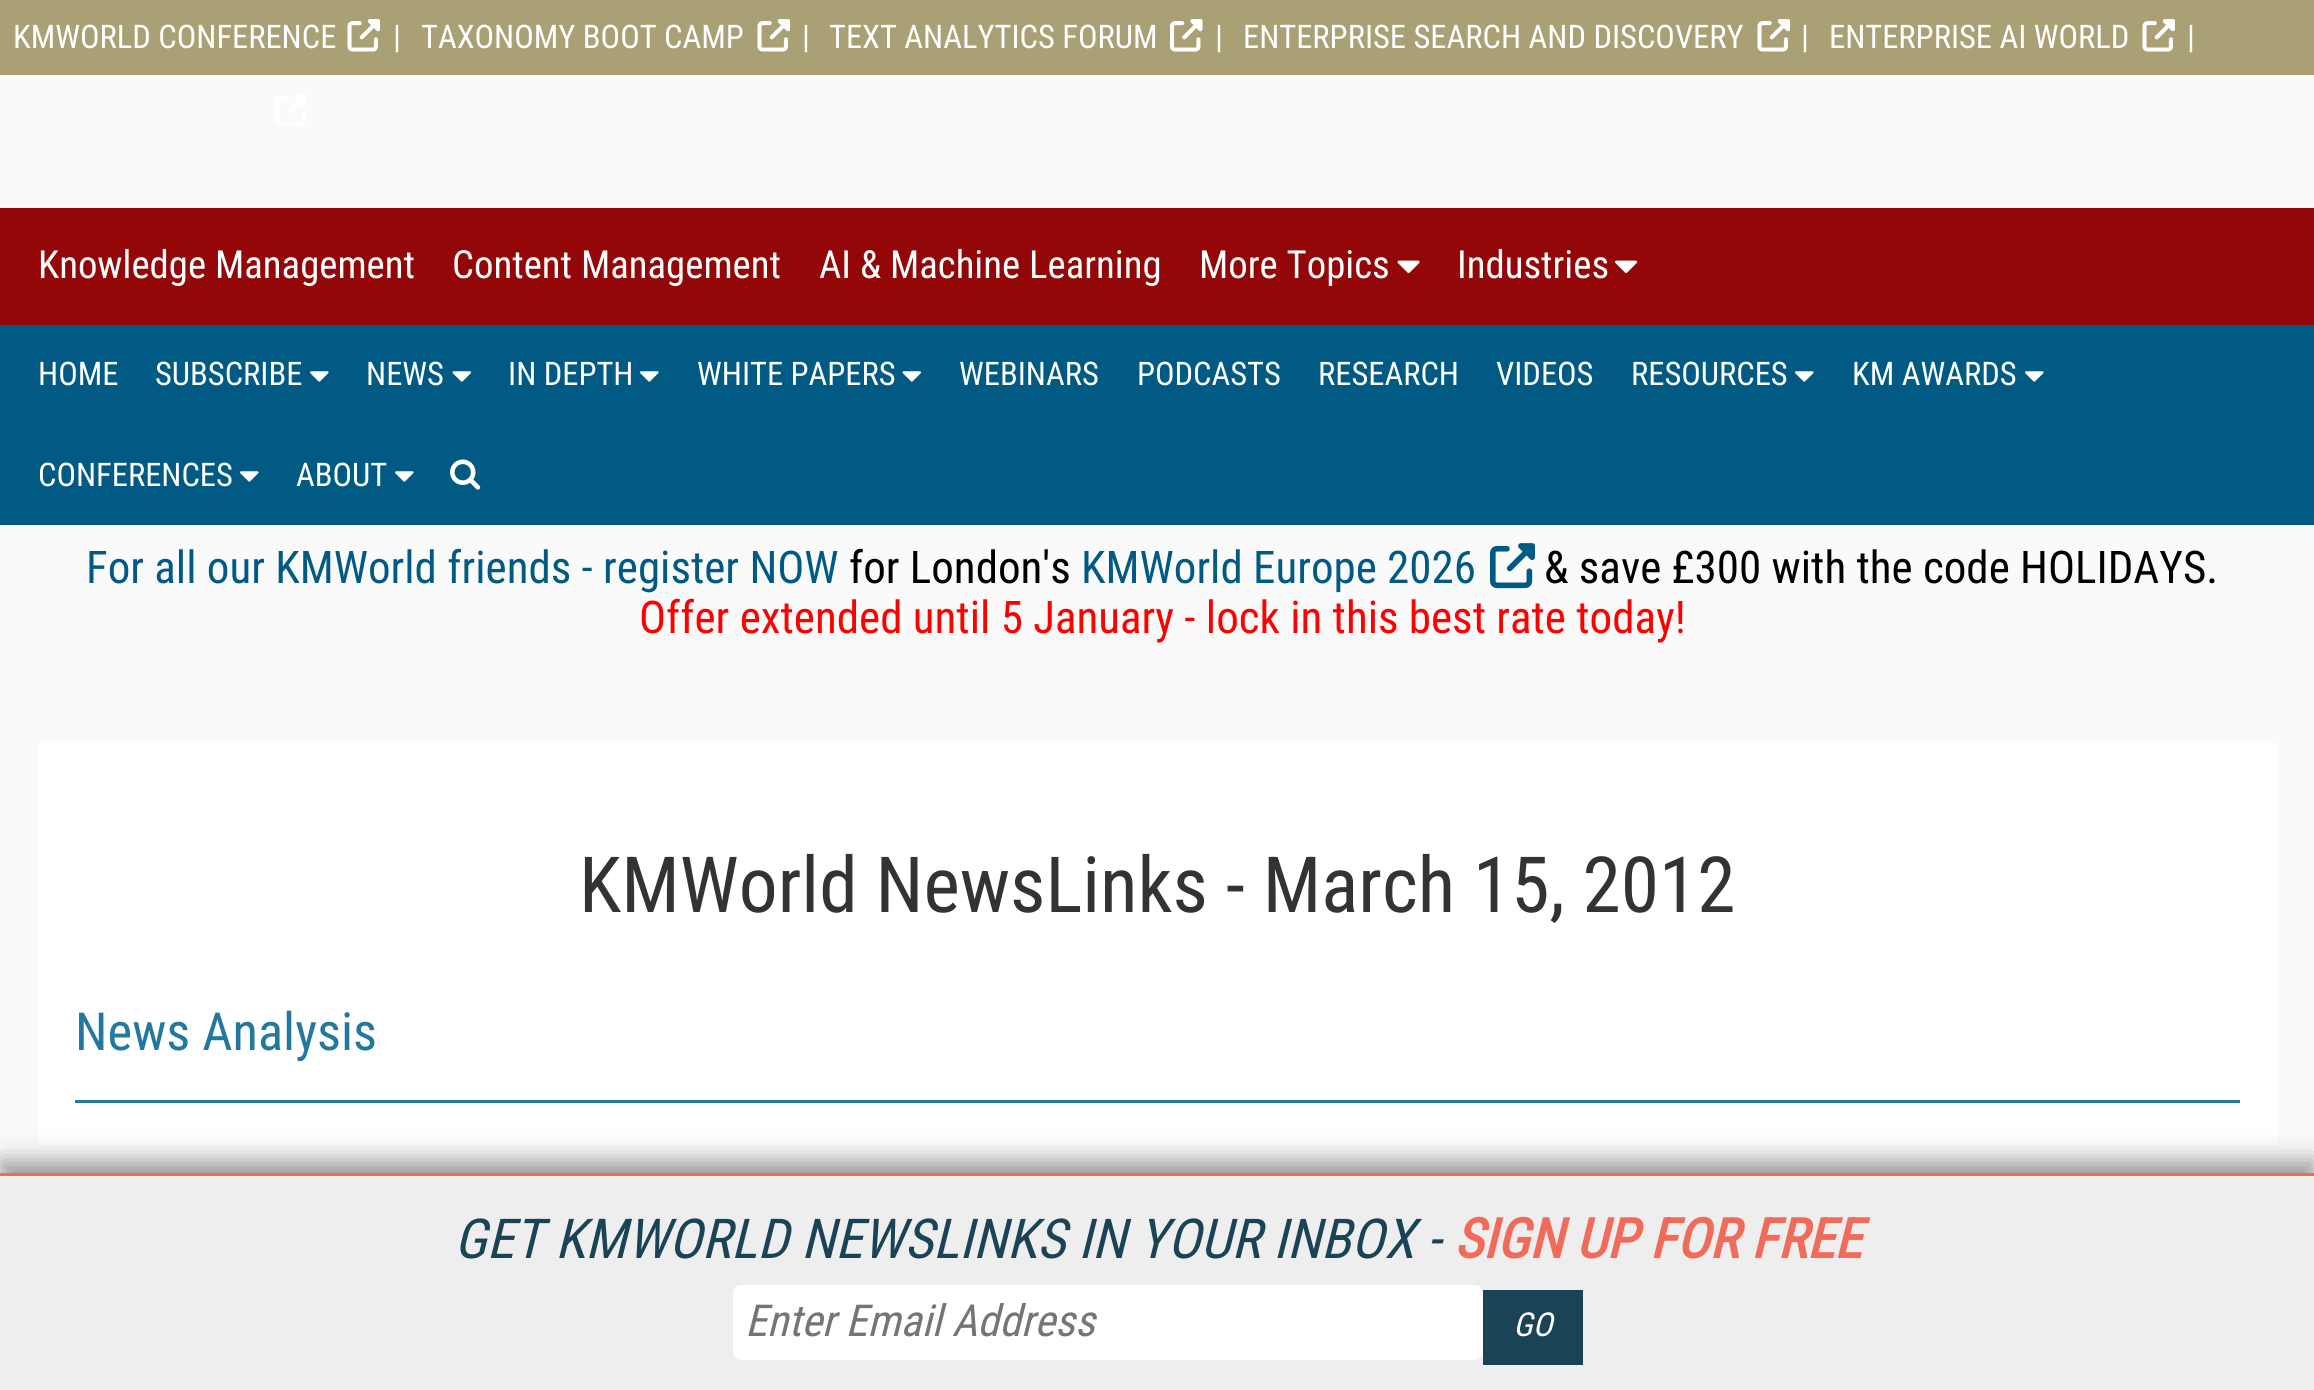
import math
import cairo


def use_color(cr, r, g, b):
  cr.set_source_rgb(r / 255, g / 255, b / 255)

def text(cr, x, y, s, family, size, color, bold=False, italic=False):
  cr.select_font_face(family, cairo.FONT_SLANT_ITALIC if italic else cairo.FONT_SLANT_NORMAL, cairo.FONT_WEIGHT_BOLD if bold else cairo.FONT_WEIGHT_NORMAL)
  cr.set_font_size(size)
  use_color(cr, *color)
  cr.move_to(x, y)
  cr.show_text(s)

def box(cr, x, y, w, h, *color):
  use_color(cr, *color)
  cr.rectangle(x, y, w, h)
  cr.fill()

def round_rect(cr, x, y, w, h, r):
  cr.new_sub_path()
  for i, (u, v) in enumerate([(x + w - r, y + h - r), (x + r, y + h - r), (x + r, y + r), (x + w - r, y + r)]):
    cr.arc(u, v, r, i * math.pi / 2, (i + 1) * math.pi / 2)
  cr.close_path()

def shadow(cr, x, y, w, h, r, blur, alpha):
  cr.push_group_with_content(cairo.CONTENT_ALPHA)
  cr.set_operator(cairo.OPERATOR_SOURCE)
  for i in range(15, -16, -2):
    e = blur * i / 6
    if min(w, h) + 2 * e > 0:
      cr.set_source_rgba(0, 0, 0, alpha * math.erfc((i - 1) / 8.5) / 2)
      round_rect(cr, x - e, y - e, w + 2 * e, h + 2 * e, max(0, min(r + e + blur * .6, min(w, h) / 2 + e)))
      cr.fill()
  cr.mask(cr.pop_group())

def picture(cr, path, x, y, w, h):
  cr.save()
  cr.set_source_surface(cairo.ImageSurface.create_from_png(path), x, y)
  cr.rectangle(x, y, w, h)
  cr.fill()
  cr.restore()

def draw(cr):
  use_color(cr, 250, 250, 250)
  cr.paint()
  box(cr, 0, 0, 2314, 75, 169, 160, 117)
  picture(cr, "img_01.png", 347, 19, 33, 33)
  picture(cr, "img_01.png", 757, 19, 33, 33)
  picture(cr, "img_02.png", 1170, 19, 33, 33)
  picture(cr, "img_01.png", 1757, 19, 33, 33)
  picture(cr, "img_01.png", 2142, 19, 33, 33)
  picture(cr, "img_03.png", 275, 94, 32, 32)
  box(cr, 0, 208, 2314, 117, 148, 7, 9)
  picture(cr, "img_04.png", 1397, 260, 23, 14)
  picture(cr, "img_05.png", 1615, 260, 23, 13)
  box(cr, 0, 325, 2314, 200, 0, 90, 132)
  picture(cr, "img_06.png", 310, 371, 19, 11)
  picture(cr, "img_07.png", 452, 371, 20, 11)
  picture(cr, "img_06.png", 640, 371, 19, 11)
  picture(cr, "img_07.png", 902, 371, 20, 11)
  picture(cr, "img_06.png", 1795, 371, 19, 11)
  picture(cr, "img_06.png", 2025, 371, 19, 11)
  picture(cr, "img_06.png", 240, 471, 19, 11)
  picture(cr, "img_06.png", 395, 471, 19, 11)
  picture(cr, "img_08.png", 450, 459, 31, 31)
  picture(cr, "img_09.png", 1490, 543, 45, 46)
  box(cr, 38, 743, 2240, 402, 255, 255, 255)
  box(cr, 75, 1100, 2165, 3, 34, 120, 157)
  box(cr, 0, 1145, 2314, 28, 255, 255, 255)
  use_color(cr, 153, 153, 153)
  shadow(cr, 0, 1160, 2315, 218, 0, 12.5, 1)
  box(cr, 0, 1176, 2314, 214, 238, 238, 238)
  box(cr, 0, 1173, 2314, 3, 240, 107, 90)
  use_color(cr, 255, 255, 255)
  round_rect(cr, 733, 1285, 750, 75, 8)
  cr.fill()
  box(cr, 1483, 1290, 100, 75, 26, 68, 85)
  text(cr, 13, 48, "KMWORLD CONFERENCE", "Roboto Condensed", 32.5, (255, 255, 255))
  text(cr, 393, 48, "|", "Roboto Condensed", 32.5, (255, 255, 255))
  text(cr, 421, 48, "TAXONOMY BOOT CAMP", "Roboto Condensed", 32.5, (255, 255, 255))
  text(cr, 802, 48, "|", "Roboto Condensed", 32.5, (255, 255, 255))
  text(cr, 829, 48, "TEXT ANALYTICS FORUM", "Roboto Condensed", 32.5, (255, 255, 255))
  text(cr, 1215, 48, "|", "Roboto Condensed", 32.5, (255, 255, 255))
  text(cr, 1243, 48, "ENTERPRISE SEARCH AND DISCOVERY", "Roboto Condensed", 32.5, (255, 255, 255))
  text(cr, 1801, 48, "|", "Roboto Condensed", 32.5, (255, 255, 255))
  text(cr, 1829, 48, "ENTERPRISE AI WORLD", "Roboto Condensed", 32.5, (255, 255, 255))
  text(cr, 2187, 48, "|", "Roboto Condensed", 32.5, (255, 255, 255))
  text(cr, 38, 278, "Knowledge Management", "Roboto Condensed", 38.75, (255, 255, 255))
  text(cr, 452, 278, "Content Management", "Roboto Condensed", 38.75, (255, 255, 255))
  text(cr, 819, 278, "AI & Machine Learning", "Roboto Condensed", 38.75, (255, 255, 255))
  text(cr, 1199, 278, "More Topics", "Roboto Condensed", 38.75, (255, 255, 255))
  text(cr, 1457, 278, "Industries", "Roboto Condensed", 38.75, (255, 255, 255))
  text(cr, 38, 385, "HOME", "Roboto Condensed", 32.5, (255, 255, 255))
  text(cr, 155, 385, "SUBSCRIBE", "Roboto Condensed", 32.5, (255, 255, 255))
  text(cr, 366, 385, "NEWS", "Roboto Condensed", 32.5, (255, 255, 255))
  text(cr, 508, 385, "IN DEPTH", "Roboto Condensed", 32.5, (255, 255, 255))
  text(cr, 697, 385, "WHITE PAPERS", "Roboto Condensed", 32.5, (255, 255, 255))
  text(cr, 959, 385, "WEBINARS", "Roboto Condensed", 32.5, (255, 255, 255))
  text(cr, 1137, 385, "PODCASTS", "Roboto Condensed", 32.5, (255, 255, 255))
  text(cr, 1318, 385, "RESEARCH", "Roboto Condensed", 32.5, (255, 255, 255))
  text(cr, 1496, 385, "VIDEOS", "Roboto Condensed", 32.5, (255, 255, 255))
  text(cr, 1631, 385, "RESOURCES", "Roboto Condensed", 32.5, (255, 255, 255))
  text(cr, 1852, 385, "KM AWARDS", "Roboto Condensed", 32.5, (255, 255, 255))
  text(cr, 38, 486, "CONFERENCES", "Roboto Condensed", 32.5, (255, 255, 255))
  text(cr, 296, 486, "ABOUT", "Roboto Condensed", 32.5, (255, 255, 255))
  text(cr, 86, 583, "For all our KMWorld friends - register NOW", "Roboto Condensed", 45, (0, 90, 132))
  text(cr, 849, 583, "for London's", "Roboto Condensed", 45, (0, 0, 0))
  text(cr, 1081, 583, "KMWorld Europe 2026", "Roboto Condensed", 45, (0, 90, 132))
  text(cr, 1544, 583, "& save £300 with the code HOLIDAYS.", "Roboto Condensed", 45, (0, 0, 0))
  text(cr, 639, 633, "Offer extended until 5 January - lock in this best rate today!", "Roboto Condensed", 45, (255, 0, 0))
  text(cr, 579, 912, "KMWorld NewsLinks - March 15, 2012", "Roboto Condensed", 77.5, (51, 51, 51))
  text(cr, 75, 1050, "News Analysis", "Roboto Condensed", 52.5, (34, 120, 157))
  text(cr, 454, 1258, "GET KMWORLD NEWSLINKS IN YOUR INBOX -", "Roboto Condensed", 55, (26, 68, 85), italic=True)
  text(cr, 1454, 1258, "SIGN UP FOR FREE", "Roboto Condensed", 55, (240, 107, 90), bold=True, italic=True)
  text(cr, 745, 1336, "Enter Email Address", "Roboto Condensed", 44, (117, 117, 117), italic=True)
  text(cr, 1513, 1336, "GO", "Roboto Condensed", 33, (255, 255, 255), italic=True)


surface = cairo.ImageSurface(cairo.FORMAT_RGB24, 2314, 1390)
cr = cairo.Context(surface)
options = cairo.FontOptions()
options.set_hint_metrics(cairo.HINT_METRICS_OFF)
options.set_hint_style(cairo.HINT_STYLE_NONE)
cr.set_font_options(options)
cr.set_miter_limit(4)
draw(cr)
surface.write_to_png("out.png")
